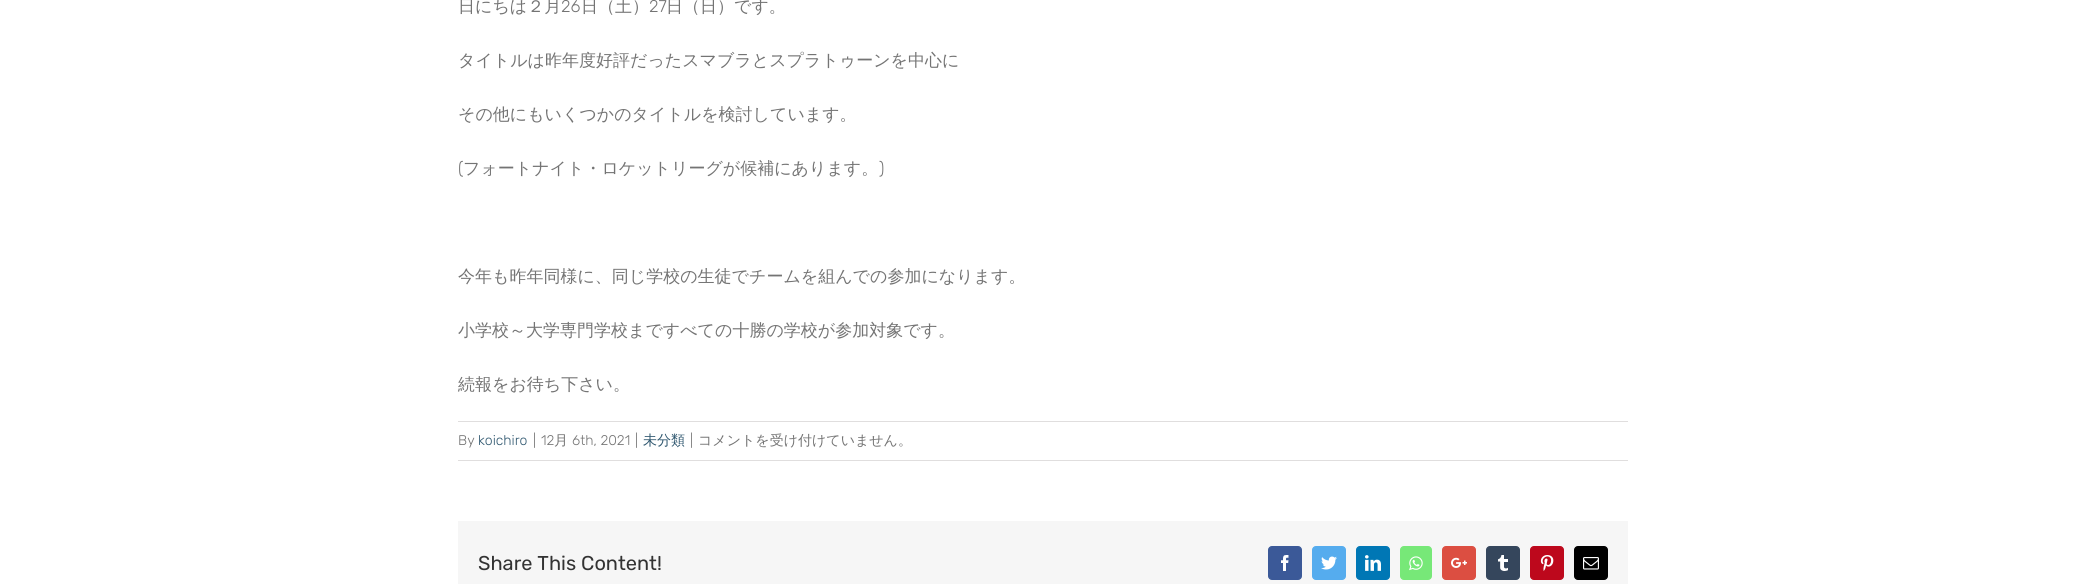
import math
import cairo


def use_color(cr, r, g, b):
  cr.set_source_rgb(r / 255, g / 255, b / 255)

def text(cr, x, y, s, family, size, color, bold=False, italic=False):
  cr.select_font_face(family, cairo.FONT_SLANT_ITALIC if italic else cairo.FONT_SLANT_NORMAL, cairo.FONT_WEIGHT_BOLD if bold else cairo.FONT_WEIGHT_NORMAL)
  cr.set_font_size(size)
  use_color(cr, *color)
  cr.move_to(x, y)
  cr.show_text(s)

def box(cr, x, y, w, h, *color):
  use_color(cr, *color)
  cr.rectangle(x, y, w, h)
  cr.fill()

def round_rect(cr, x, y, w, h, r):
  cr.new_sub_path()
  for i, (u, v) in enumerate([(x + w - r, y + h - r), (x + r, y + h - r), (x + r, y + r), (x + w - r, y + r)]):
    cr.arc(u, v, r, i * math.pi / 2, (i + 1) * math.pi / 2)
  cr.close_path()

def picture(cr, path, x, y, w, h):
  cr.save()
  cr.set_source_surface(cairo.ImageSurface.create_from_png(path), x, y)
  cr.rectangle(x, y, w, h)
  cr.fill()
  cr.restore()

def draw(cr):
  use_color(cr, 255, 255, 255)
  cr.paint()
  box(cr, 458, 421, 1170, 1, 224, 222, 222)
  box(cr, 458, 460, 1170, 1, 224, 222, 222)
  box(cr, 458, 521, 1170, 63, 246, 246, 246)
  use_color(cr, 59, 89, 152)
  round_rect(cr, 1268.5, 546.5, 33, 33, 3.5)
  cr.fill_preserve()
  cr.set_line_width(1)
  cr.stroke()
  picture(cr, "img_01.png", 1281, 555, 8, 16)
  use_color(cr, 85, 172, 238)
  round_rect(cr, 1312.5, 546.5, 33, 33, 3.5)
  cr.fill_preserve()
  cr.stroke()
  picture(cr, "img_02.png", 1321, 556, 16, 14)
  use_color(cr, 0, 119, 181)
  round_rect(cr, 1356.5, 546.5, 33, 33, 3.5)
  cr.fill_preserve()
  cr.stroke()
  picture(cr, "img_03.png", 1365, 555, 16, 16)
  use_color(cr, 119, 232, 120)
  round_rect(cr, 1400.5, 546.5, 31, 33, 3.5)
  cr.fill_preserve()
  cr.stroke()
  picture(cr, "img_04.png", 1409, 556, 14, 15)
  use_color(cr, 220, 78, 65)
  round_rect(cr, 1442.5, 546.5, 33, 33, 3.5)
  cr.fill_preserve()
  cr.stroke()
  picture(cr, "img_05.png", 1451, 557, 16, 11)
  use_color(cr, 53, 70, 92)
  round_rect(cr, 1486.5, 546.5, 33, 33, 3.5)
  cr.fill_preserve()
  cr.stroke()
  picture(cr, "img_06.png", 1498, 555, 10, 16)
  use_color(cr, 189, 8, 28)
  round_rect(cr, 1530.5, 546.5, 33, 33, 3.5)
  cr.fill_preserve()
  cr.stroke()
  picture(cr, "img_07.png", 1540, 555, 14, 16)
  use_color(cr, 0, 0, 0)
  round_rect(cr, 1574.5, 546.5, 33, 33, 3.5)
  cr.fill_preserve()
  cr.stroke()
  picture(cr, "img_08.png", 1583, 557, 16, 13)
  text(cr, 458, 12, "日にちは２月", "WenQuanYi Zen Hei Medium", 17, (116, 116, 116))
  text(cr, 561, 12, "26", "Rubik Light", 17, (116, 116, 116))
  text(cr, 581, 12, "日（土）", "WenQuanYi Zen Hei Medium", 17, (116, 116, 116))
  text(cr, 649, 12, "27", "Rubik Light", 17, (116, 116, 116))
  text(cr, 666, 12, "日（日）です。", "WenQuanYi Zen Hei Medium", 17, (116, 116, 116))
  text(cr, 458, 66, "タイトルは昨年度好評だったスマブラとスプラトゥーンを中心に", "WenQuanYi Zen Hei Medium", 17, (116, 116, 116))
  text(cr, 458, 120, "その他にもいくつかのタイトルを検討しています。", "WenQuanYi Zen Hei Medium", 17, (116, 116, 116))
  text(cr, 458, 174, "(", "Rubik Light", 17, (116, 116, 116))
  text(cr, 463, 174, "フォートナイト・ロケットリーグが候補にあります。", "WenQuanYi Zen Hei Medium", 17, (116, 116, 116))
  text(cr, 879, 174, ")", "Rubik Light", 17, (116, 116, 116))
  text(cr, 458, 282, "今年も昨年同様に、同じ学校の生徒でチームを組んでの参加になります。", "WenQuanYi Zen Hei Medium", 17, (116, 116, 116))
  text(cr, 458, 336, "小学校～大学専門学校まですべての十勝の学校が参加対象です。", "WenQuanYi Zen Hei Medium", 17, (116, 116, 116))
  text(cr, 458, 390, "続報をお待ち下さい。", "WenQuanYi Zen Hei Medium", 17, (116, 116, 116))
  text(cr, 458, 445, "By", "Rubik Light", 14, (116, 116, 116))
  text(cr, 478, 445, "koichiro", "Rubik Light", 14, (47, 87, 111))
  text(cr, 533, 445, "|", "Rubik Light", 14, (116, 116, 116))
  text(cr, 541, 445, "12", "Rubik Light", 14, (116, 116, 116))
  text(cr, 554, 445, "月", "WenQuanYi Zen Hei Medium", 14, (116, 116, 116))
  text(cr, 572, 445, "6th, 2021", "Rubik Light", 14, (116, 116, 116))
  text(cr, 635, 445, "|", "Rubik Light", 14, (116, 116, 116))
  text(cr, 643, 445, "未分類", "WenQuanYi Zen Hei Medium", 14, (47, 87, 111))
  text(cr, 690, 445, "|", "Rubik Light", 14, (116, 116, 116))
  text(cr, 698, 445, "コメントを受け付けていません。", "WenQuanYi Zen Hei Medium", 14, (116, 116, 116))
  text(cr, 478, 570, "Share This Content!", "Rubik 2 Light", 20, (51, 51, 51))


surface = cairo.ImageSurface(cairo.FORMAT_RGB24, 2086, 584)
cr = cairo.Context(surface)
options = cairo.FontOptions()
options.set_hint_metrics(cairo.HINT_METRICS_OFF)
options.set_hint_style(cairo.HINT_STYLE_NONE)
cr.set_font_options(options)
cr.set_miter_limit(4)
draw(cr)
surface.write_to_png("out.png")
